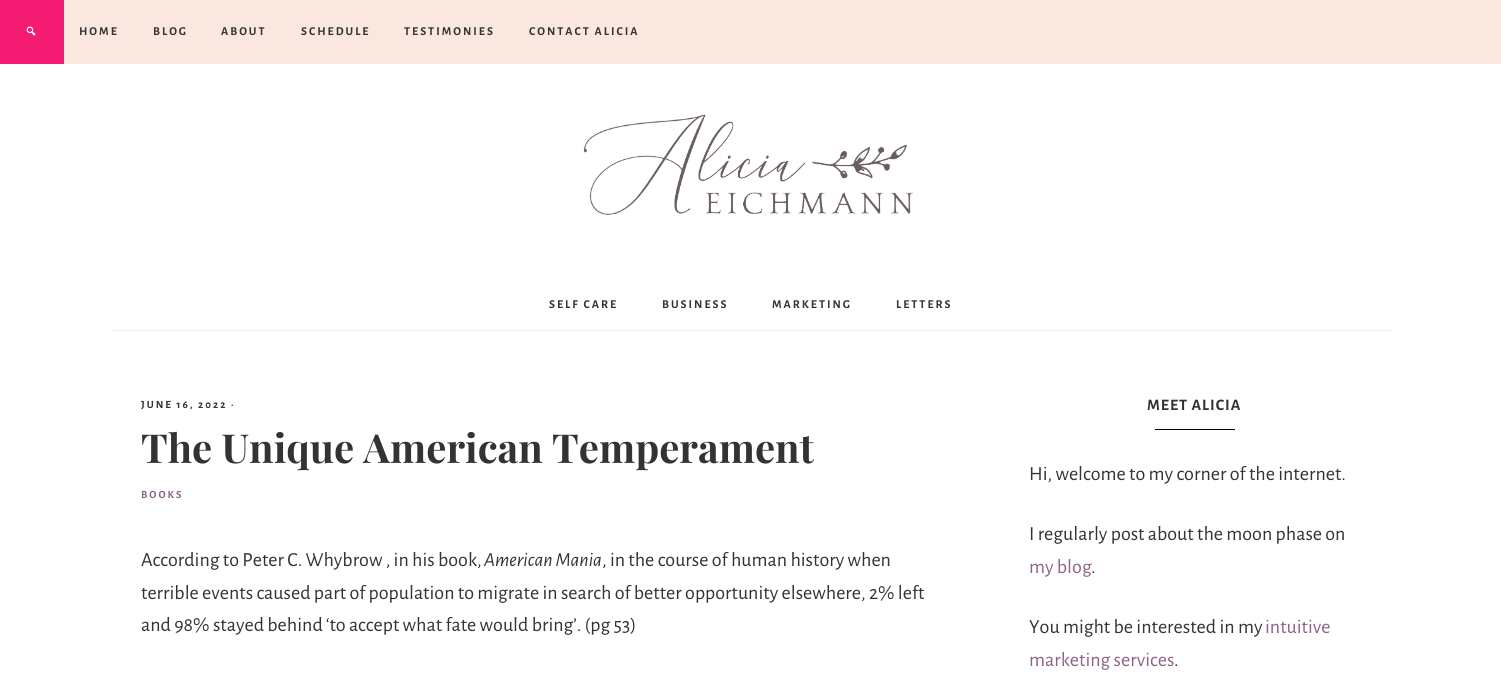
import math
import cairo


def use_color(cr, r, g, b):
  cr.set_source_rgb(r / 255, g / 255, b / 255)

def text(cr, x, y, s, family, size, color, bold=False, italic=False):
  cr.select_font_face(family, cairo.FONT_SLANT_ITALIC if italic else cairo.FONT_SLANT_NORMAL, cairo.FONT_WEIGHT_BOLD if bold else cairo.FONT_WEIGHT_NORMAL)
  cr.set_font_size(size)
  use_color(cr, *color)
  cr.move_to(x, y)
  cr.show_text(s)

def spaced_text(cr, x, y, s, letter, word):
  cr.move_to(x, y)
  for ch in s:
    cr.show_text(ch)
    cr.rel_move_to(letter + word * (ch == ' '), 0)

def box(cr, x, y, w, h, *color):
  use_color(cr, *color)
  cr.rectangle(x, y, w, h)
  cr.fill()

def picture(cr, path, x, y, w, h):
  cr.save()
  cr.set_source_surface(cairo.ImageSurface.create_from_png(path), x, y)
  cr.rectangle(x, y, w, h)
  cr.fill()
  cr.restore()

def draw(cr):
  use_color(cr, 255, 255, 255)
  cr.paint()
  box(cr, 64, 0, 1437, 64, 250, 232, 224)
  box(cr, 0, 0, 64, 64, 243, 28, 114)
  picture(cr, "img_01.png", 26, 26, 10, 10)
  picture(cr, "img_02.png", 583, 114, 330, 101)
  box(cr, 111, 330, 1280, 1, 238, 238, 238)
  box(cr, 1155, 429, 80, 1, 0, 0, 0)
  cr.select_font_face("Alegreya Sans", cairo.FONT_SLANT_NORMAL, cairo.FONT_WEIGHT_BOLD)
  cr.set_font_size(12)
  use_color(cr, 51, 51, 51)
  spaced_text(cr, 79, 35, "HOME", 2, 0)
  spaced_text(cr, 153, 35, "BLOG", 2, 0)
  spaced_text(cr, 221, 35, "ABOUT", 2, 0)
  spaced_text(cr, 301, 35, "SCHEDULE", 2, 0)
  spaced_text(cr, 404, 35, "TESTIMONIES", 2, 0)
  spaced_text(cr, 529, 35, "CONTACT ALICIA", 2, 0)
  spaced_text(cr, 549, 308, "SELF CARE", 2, 0)
  spaced_text(cr, 662, 308, "BUSINESS", 2, 0)
  spaced_text(cr, 772, 308, "MARKETING", 2, 0)
  spaced_text(cr, 896, 308, "LETTERS", 2, 0)
  cr.set_font_size(11)
  spaced_text(cr, 141, 408, "JUNE 16, 2022 ·", 2, 0)
  text(cr, 141, 463, "The Unique American Temperament", "Playfair Display", 40, (51, 51, 51), bold=True)
  cr.select_font_face("Alegreya Sans", cairo.FONT_SLANT_NORMAL, cairo.FONT_WEIGHT_BOLD)
  cr.set_font_size(11)
  use_color(cr, 142, 99, 133)
  spaced_text(cr, 141, 498, "BOOKS", 2, 0)
  text(cr, 141, 566, "According to Peter C. Whybrow , in his book,", "Alegreya Sans", 20, (51, 51, 51))
  text(cr, 484, 566, "American Mania", "Alegreya Sans", 20, (51, 51, 51), italic=True)
  text(cr, 602, 566, ", in the course of human history when", "Alegreya Sans", 20, (51, 51, 51))
  text(cr, 141, 599, "terrible events caused part of population to migrate in search of better opportunity elsewhere, 2% left", "Alegreya Sans", 20, (51, 51, 51))
  text(cr, 141, 631, "and 98% stayed behind ‘to accept what fate would bring’. (pg 53)", "Alegreya Sans", 20, (51, 51, 51))
  cr.select_font_face("Alegreya Sans", cairo.FONT_SLANT_NORMAL, cairo.FONT_WEIGHT_BOLD)
  cr.set_font_size(16)
  spaced_text(cr, 1147, 410, "MEET ALICIA", 1, 0)
  text(cr, 1029, 480, "Hi, welcome to my corner of the internet.", "Alegreya Sans", 20, (51, 51, 51))
  text(cr, 1029, 540, "I regularly post about the moon phase on", "Alegreya Sans", 20, (51, 51, 51))
  text(cr, 1029, 573, "my blog", "Alegreya Sans", 20, (142, 99, 133))
  text(cr, 1091, 573, ".", "Alegreya Sans", 20, (51, 51, 51))
  text(cr, 1029, 633, "You might be interested in my", "Alegreya Sans", 20, (51, 51, 51))
  text(cr, 1265, 633, "intuitive", "Alegreya Sans", 20, (142, 99, 133))
  text(cr, 1029, 666, "marketing services", "Alegreya Sans", 20, (142, 99, 133))
  text(cr, 1174, 666, ".", "Alegreya Sans", 20, (51, 51, 51))


surface = cairo.ImageSurface(cairo.FORMAT_RGB24, 1501, 679)
cr = cairo.Context(surface)
options = cairo.FontOptions()
options.set_hint_metrics(cairo.HINT_METRICS_OFF)
options.set_hint_style(cairo.HINT_STYLE_NONE)
cr.set_font_options(options)
cr.set_miter_limit(4)
draw(cr)
surface.write_to_png("out.png")
